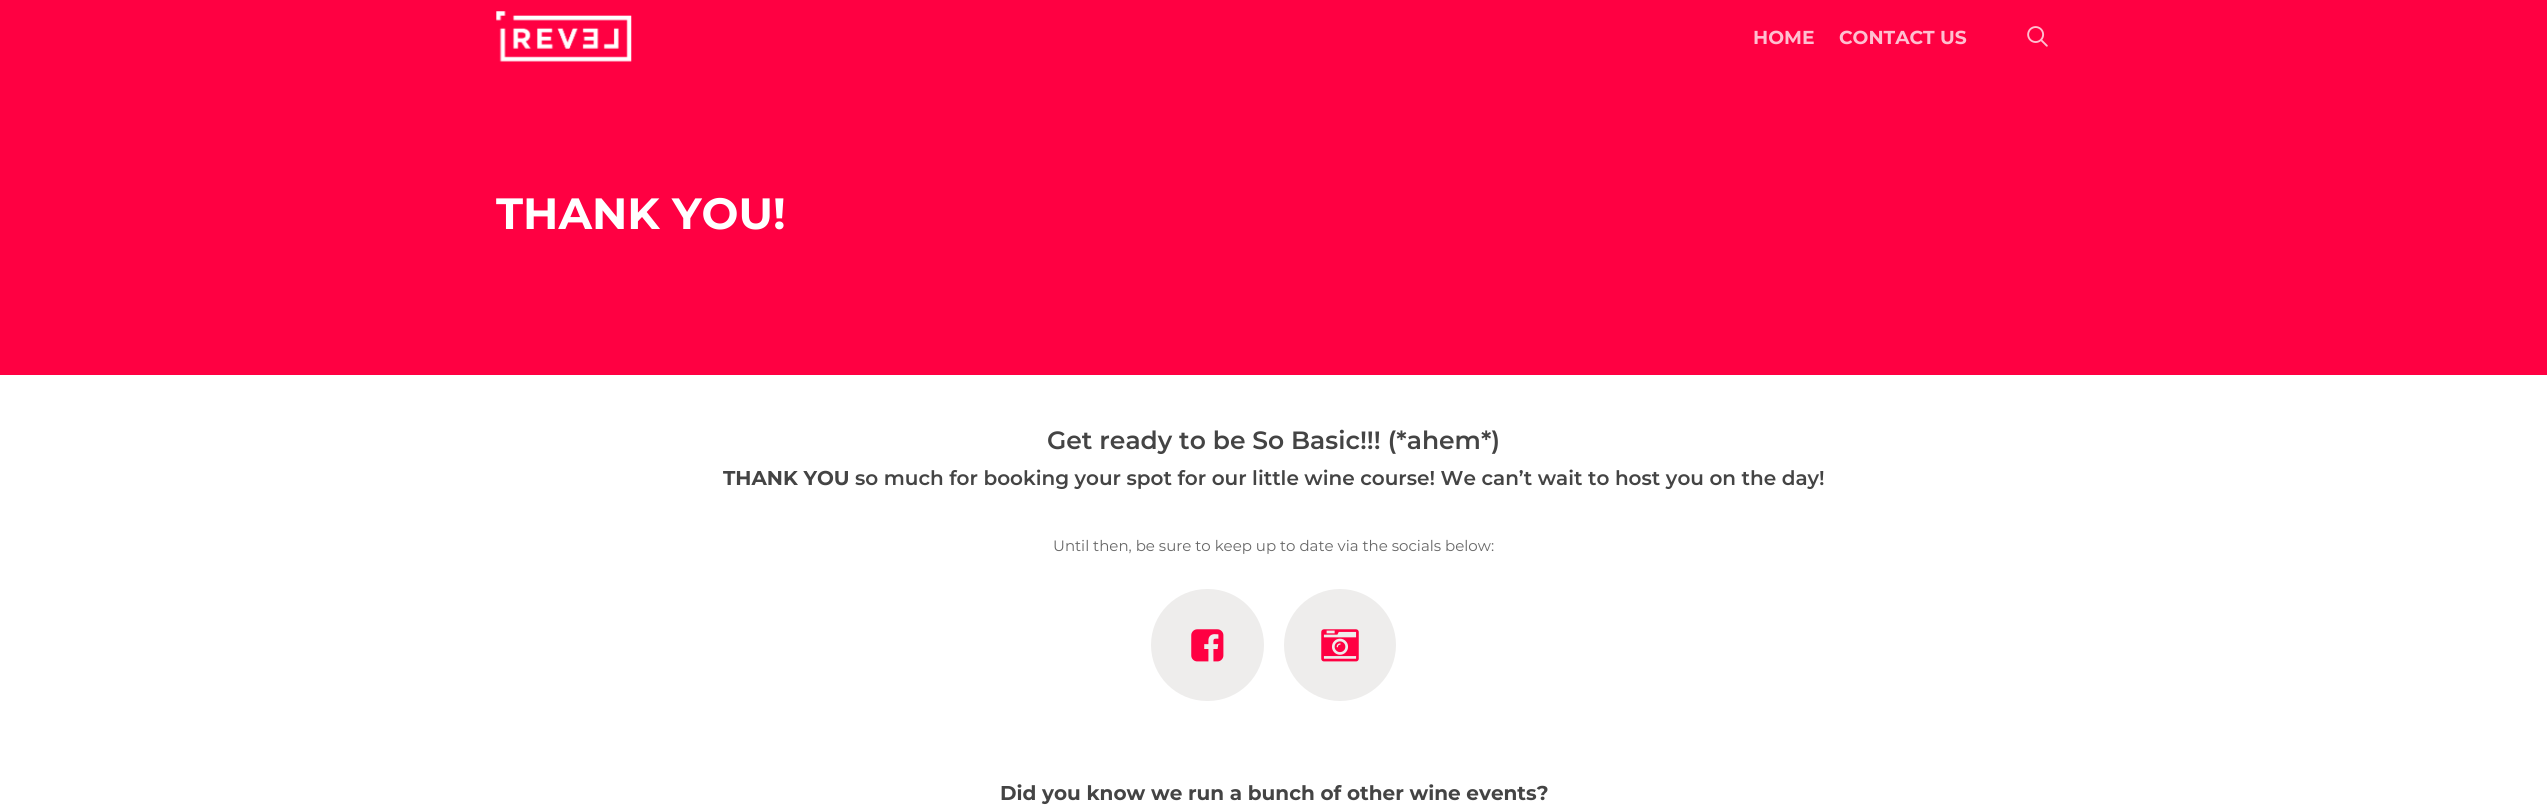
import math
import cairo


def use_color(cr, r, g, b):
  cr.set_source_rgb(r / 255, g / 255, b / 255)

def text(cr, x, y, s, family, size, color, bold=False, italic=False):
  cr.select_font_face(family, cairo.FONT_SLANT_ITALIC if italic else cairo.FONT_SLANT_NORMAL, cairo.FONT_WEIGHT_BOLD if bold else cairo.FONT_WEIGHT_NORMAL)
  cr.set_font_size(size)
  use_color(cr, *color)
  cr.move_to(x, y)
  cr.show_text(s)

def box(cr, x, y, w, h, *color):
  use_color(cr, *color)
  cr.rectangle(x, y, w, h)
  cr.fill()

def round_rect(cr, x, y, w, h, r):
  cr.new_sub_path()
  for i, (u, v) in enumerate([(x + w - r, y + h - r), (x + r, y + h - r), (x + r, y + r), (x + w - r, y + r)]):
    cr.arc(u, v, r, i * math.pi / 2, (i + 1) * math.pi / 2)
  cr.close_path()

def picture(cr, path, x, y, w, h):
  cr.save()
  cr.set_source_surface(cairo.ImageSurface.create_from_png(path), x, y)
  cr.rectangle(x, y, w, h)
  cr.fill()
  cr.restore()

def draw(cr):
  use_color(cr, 255, 255, 255)
  cr.paint()
  box(cr, 0, 0, 2547, 375, 255, 0, 66)
  picture(cr, "img_01.png", 496, 11, 136, 51)
  picture(cr, "img_02.png", 2027, 26, 21, 21)
  use_color(cr, 238, 237, 236)
  round_rect(cr, 1151, 589, 113, 112, 56)
  cr.fill()
  picture(cr, "img_03.png", 1191, 629, 33, 33)
  cr.arc(1340, 645, 56, 0, 2 * math.pi)
  cr.fill()
  picture(cr, "img_04.png", 1321, 629, 38, 33)
  text(cr, 1753, 44, "HOME", "Montserrat", 18.75, (255, 191, 208), bold=True)
  text(cr, 1839, 44, "CONTACT US", "Montserrat", 18.75, (255, 191, 208), bold=True)
  text(cr, 496, 229, "THANK YOU!", "Montserrat", 43.75, (255, 255, 255), bold=True)
  text(cr, 1047, 449, "Get ready to be So Basic!!! (*ahem*)", "Montserrat SemiBold", 25, (68, 68, 68))
  text(cr, 723, 485, "THANK YOU", "Montserrat", 20, (68, 68, 68), bold=True)
  text(cr, 855, 485, "so much for booking your spot for our little wine course! We can’t wait to host you on the day!", "Montserrat SemiBold", 20, (68, 68, 68))
  text(cr, 1053, 551, "Until then, be sure to keep up to date via the socials below:", "Montserrat", 15, (103, 103, 103))
  text(cr, 1000, 800, "Did you know we run a bunch of other wine events?", "Montserrat", 20, (68, 68, 68), bold=True)


surface = cairo.ImageSurface(cairo.FORMAT_RGB24, 2547, 812)
cr = cairo.Context(surface)
options = cairo.FontOptions()
options.set_hint_metrics(cairo.HINT_METRICS_OFF)
options.set_hint_style(cairo.HINT_STYLE_NONE)
cr.set_font_options(options)
cr.set_miter_limit(4)
draw(cr)
surface.write_to_png("out.png")
